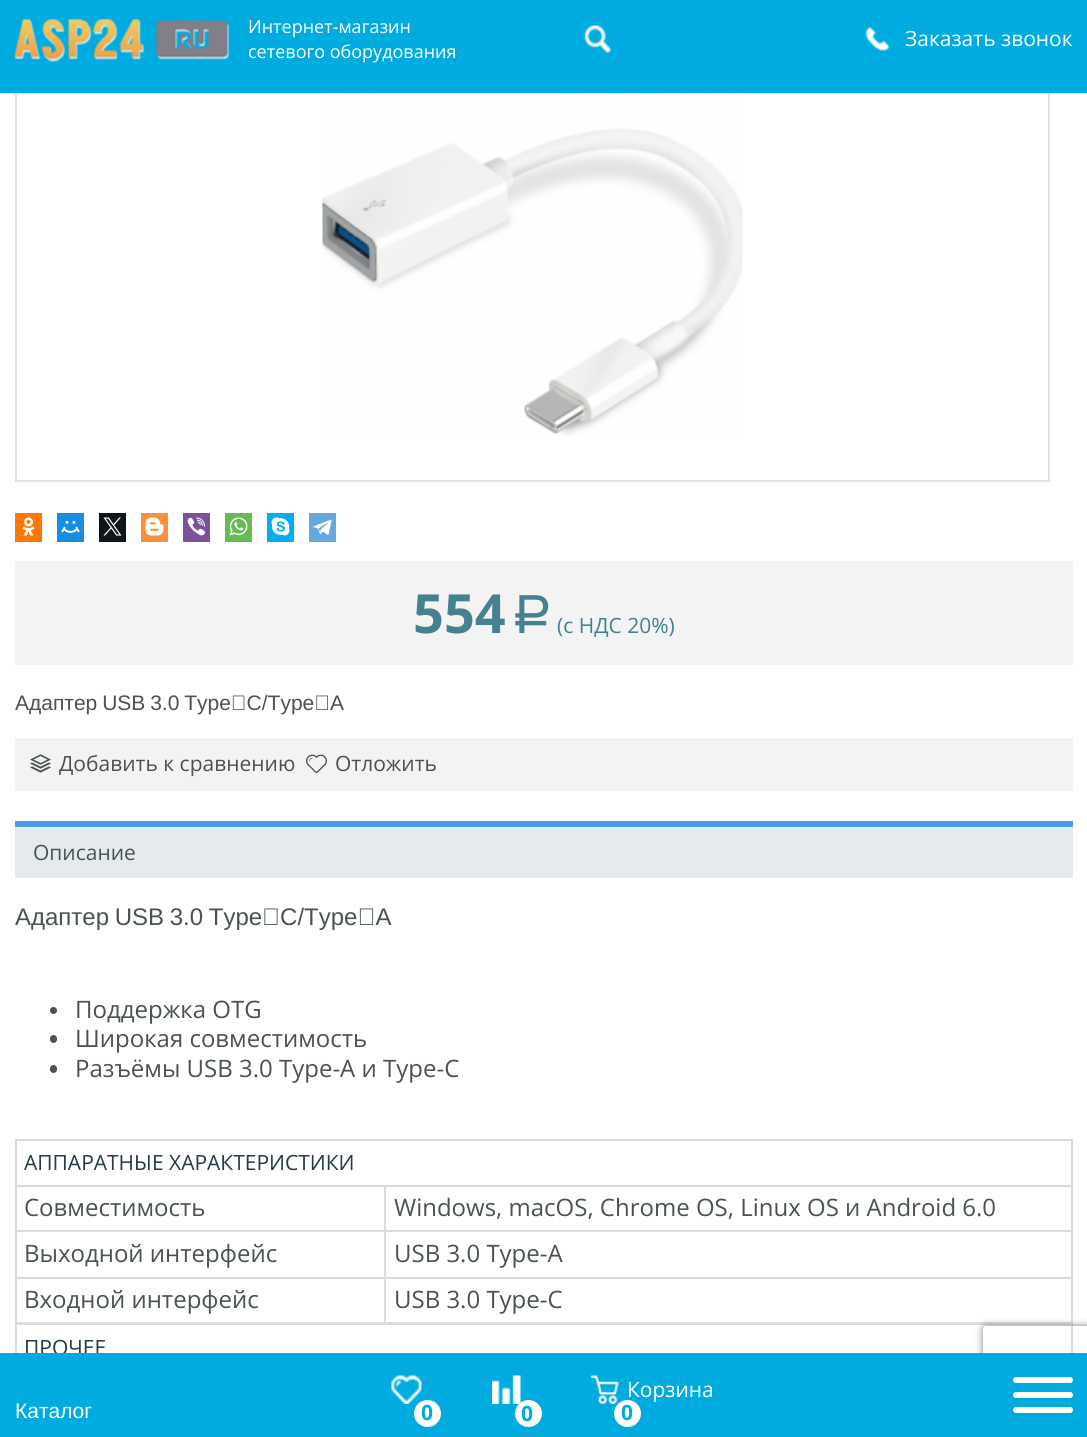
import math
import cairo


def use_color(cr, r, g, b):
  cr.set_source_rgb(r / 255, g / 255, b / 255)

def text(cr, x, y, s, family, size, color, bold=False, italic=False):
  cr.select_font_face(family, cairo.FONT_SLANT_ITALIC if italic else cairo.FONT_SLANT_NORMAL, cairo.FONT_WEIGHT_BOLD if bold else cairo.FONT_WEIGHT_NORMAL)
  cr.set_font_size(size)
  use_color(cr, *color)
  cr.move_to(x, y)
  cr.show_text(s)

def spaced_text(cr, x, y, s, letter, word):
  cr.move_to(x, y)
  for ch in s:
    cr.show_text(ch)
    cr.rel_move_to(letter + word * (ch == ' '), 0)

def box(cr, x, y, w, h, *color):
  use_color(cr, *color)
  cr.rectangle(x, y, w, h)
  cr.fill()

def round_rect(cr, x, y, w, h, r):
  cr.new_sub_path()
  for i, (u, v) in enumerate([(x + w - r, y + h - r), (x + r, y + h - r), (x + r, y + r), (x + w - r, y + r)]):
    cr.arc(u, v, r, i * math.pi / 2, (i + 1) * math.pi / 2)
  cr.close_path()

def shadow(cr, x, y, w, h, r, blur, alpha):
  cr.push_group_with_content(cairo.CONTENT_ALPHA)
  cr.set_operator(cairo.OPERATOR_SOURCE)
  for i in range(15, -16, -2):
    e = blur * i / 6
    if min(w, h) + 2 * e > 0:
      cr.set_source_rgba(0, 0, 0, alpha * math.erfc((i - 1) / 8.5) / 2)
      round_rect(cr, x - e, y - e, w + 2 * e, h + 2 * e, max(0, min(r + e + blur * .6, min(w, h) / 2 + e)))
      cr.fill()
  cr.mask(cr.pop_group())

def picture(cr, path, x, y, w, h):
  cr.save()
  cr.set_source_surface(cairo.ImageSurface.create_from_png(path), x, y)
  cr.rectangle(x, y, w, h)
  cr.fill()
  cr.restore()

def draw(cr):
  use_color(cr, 255, 255, 255)
  cr.paint()
  cr.rectangle(16, 60, 1033, 421)
  use_color(cr, 227, 223, 223)
  cr.stroke()
  box(cr, 0, 0, 1087, 93, 0, 171, 223)
  picture(cr, "img_01.png", 13, 19, 216, 43)
  picture(cr, "img_02.png", 584, 25, 27, 28)
  picture(cr, "img_03.png", 865, 27, 25, 24)
  picture(cr, "img_07.png", 322, 93, 421, 343)
  box(cr, 15, 513, 27, 29, 255, 119, 0)
  picture(cr, "img_08.png", 22, 517, 13, 19)
  box(cr, 57, 513, 27, 29, 22, 141, 226)
  picture(cr, "img_09.png", 61, 520, 19, 13)
  box(cr, 99, 513, 27, 29, 15, 20, 25)
  picture(cr, "img_10.png", 103, 517, 19, 19)
  box(cr, 141, 513, 27, 29, 251, 143, 61)
  picture(cr, "img_11.png", 145, 517, 19, 19)
  box(cr, 183, 513, 27, 29, 123, 81, 157)
  picture(cr, "img_12.png", 187, 517, 18, 19)
  box(cr, 225, 513, 27, 29, 101, 188, 84)
  picture(cr, "img_13.png", 229, 517, 19, 19)
  box(cr, 267, 513, 27, 29, 0, 175, 240)
  picture(cr, "img_14.png", 271, 517, 19, 19)
  box(cr, 309, 513, 27, 29, 100, 169, 220)
  picture(cr, "img_15.png", 313, 519, 19, 16)
  box(cr, 15, 561, 1058, 104, 243, 243, 243)
  box(cr, 15, 738, 1058, 53, 243, 243, 243)
  picture(cr, "img_16.png", 30, 754, 21, 19)
  picture(cr, "img_17.png", 306, 754, 21, 19)
  box(cr, 15, 827, 1058, 51, 229, 235, 236)
  box(cr, 15, 821, 1058, 6, 74, 157, 233)
  use_color(cr, 74, 82, 84)
  cr.arc(53.5, 1010.5, 3.5, 0, 2 * math.pi)
  cr.fill()
  round_rect(cr, 50, 1035, 7, 8, 3.5)
  cr.fill()
  round_rect(cr, 50, 1065, 7, 8, 3.5)
  cr.fill()
  box(cr, 15, 1139, 1058, 2, 220, 220, 220)
  box(cr, 384, 1185, 689, 2, 220, 220, 220)
  box(cr, 384, 1230, 689, 2, 220, 220, 220)
  box(cr, 384, 1277, 689, 2, 220, 220, 220)
  box(cr, 1071, 1277, 2, 46, 220, 220, 220)
  box(cr, 1071, 1230, 2, 48, 220, 220, 220)
  box(cr, 1071, 1185, 2, 47, 220, 220, 220)
  box(cr, 1071, 1139, 2, 48, 220, 220, 220)
  box(cr, 384, 1322, 689, 1, 220, 220, 220)
  box(cr, 384, 1277, 2, 46, 220, 220, 220)
  box(cr, 15, 1277, 371, 2, 220, 220, 220)
  box(cr, 384, 1230, 2, 48, 220, 220, 220)
  box(cr, 15, 1230, 371, 2, 220, 220, 220)
  box(cr, 384, 1185, 2, 47, 220, 220, 220)
  box(cr, 15, 1185, 371, 2, 220, 220, 220)
  box(cr, 15, 1322, 371, 1, 220, 220, 220)
  box(cr, 15, 1277, 2, 46, 220, 220, 220)
  box(cr, 15, 1230, 2, 48, 220, 220, 220)
  box(cr, 15, 1185, 2, 47, 220, 220, 220)
  box(cr, 15, 1139, 2, 48, 220, 220, 220)
  box(cr, 15, 1323, 1058, 2, 220, 220, 220)
  box(cr, 1071, 1323, 2, 30, 220, 220, 220)
  box(cr, 15, 1323, 2, 30, 220, 220, 220)
  cr.save()
  cr.set_fill_rule(cairo.FILL_RULE_EVEN_ODD)
  cr.new_path()
  cr.move_to(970, 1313)
  cr.line_to(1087, 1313)
  cr.line_to(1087, 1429)
  cr.line_to(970, 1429)
  cr.close_path()
  cr.move_to(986, 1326)
  cr.line_to(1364, 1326)
  cr.curve_to(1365.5, 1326, 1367, 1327.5, 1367, 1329)
  cr.line_to(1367, 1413)
  cr.curve_to(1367, 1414.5, 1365.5, 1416, 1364, 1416)
  cr.line_to(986, 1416)
  cr.curve_to(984.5, 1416, 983, 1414.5, 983, 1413)
  cr.line_to(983, 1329)
  cr.curve_to(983, 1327.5, 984.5, 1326, 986, 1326)
  cr.close_path()
  cr.clip()
  use_color(cr, 128, 128, 128)
  shadow(cr, 983, 1326, 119, 90, 3, 4, 1)
  cr.restore()
  text(cr, 248, 33, "Интернет-магазин", "Open Sans", 18, (255, 255, 255))
  text(cr, 248, 58, "сетевого оборудования", "Open Sans", 18, (255, 255, 255))
  text(cr, 905, 46, "Заказать звонок", "Open Sans", 21, (255, 255, 255))
  text(cr, 413, 633, "554", "Open Sans", 54, (69, 129, 142), bold=True)
  text(cr, 511, 633, "Р", "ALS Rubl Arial", 54, (69, 129, 142))
  text(cr, 557, 633, "(с НДС 20%)", "Open Sans", 21, (69, 129, 142))
  cr.select_font_face("Liberation Sans")
  use_color(cr, 74, 82, 84)
  spaced_text(cr, 15, 710, "Адаптер USB 3.0 Type‑C/Type‑A", 0, -1)
  text(cr, 59, 771, "Добавить к сравнению", "Open Sans", 21, (74, 82, 84))
  text(cr, 335, 771, "Отложить", "Open Sans", 21, (74, 82, 84))
  text(cr, 33, 860, "Описание", "Open Sans", 21, (74, 82, 84))
  cr.select_font_face("Liberation Sans")
  cr.set_font_size(24)
  spaced_text(cr, 15, 925, "Адаптер USB 3.0 Type‑C/Type‑A", 0, -1)
  text(cr, 75, 1018, "Поддержка OTG", "Open Sans", 24, (74, 82, 84))
  text(cr, 75, 1047, "Широкая совместимость", "Open Sans", 24, (74, 82, 84))
  text(cr, 75, 1077, "Разъёмы USB 3.0 Type-A и Type-C", "Open Sans", 24, (74, 82, 84))
  text(cr, 24, 1170, "АППАРАТНЫЕ ХАРАКТЕРИСТИКИ", "Open Sans", 21, (37, 60, 68))
  text(cr, 24, 1216, "Совместимость", "Open Sans", 24, (74, 82, 84))
  text(cr, 394, 1216, "Windows, macOS, Chrome OS, Linux OS и Android 6.0", "Open Sans", 24, (74, 82, 84))
  text(cr, 24, 1262, "Выходной интерфейс", "Open Sans", 24, (74, 82, 84))
  text(cr, 394, 1262, "USB 3.0 Type-A", "Open Sans", 24, (74, 82, 84))
  text(cr, 24, 1308, "Входной интерфейс", "Open Sans", 24, (74, 82, 84))
  text(cr, 394, 1308, "USB 3.0 Type-C", "Open Sans", 24, (74, 82, 84))
  text(cr, 24, 1355, "ПРОЧЕЕ", "Open Sans", 21, (37, 60, 68))
  box(cr, 0, 1353, 1087, 84, 0, 171, 223)
  picture(cr, "img_06.png", 591, 1375, 28, 29)
  use_color(cr, 255, 255, 255)
  cr.arc(627.5, 1413.5, 13.5, 0, 2 * math.pi)
  cr.fill()
  text(cr, 621, 1420, "0", "Open Sans", 21, (0, 171, 223), bold=True)
  picture(cr, "img_05.png", 492, 1375, 29, 29)
  use_color(cr, 255, 255, 255)
  cr.arc(528.5, 1413.5, 13.5, 0, 2 * math.pi)
  cr.fill()
  text(cr, 521, 1421, "0", "Open Sans", 21, (0, 171, 223), bold=True)
  picture(cr, "img_04.png", 391, 1375, 31, 29)
  use_color(cr, 255, 255, 255)
  cr.arc(427.5, 1413.5, 13.5, 0, 2 * math.pi)
  cr.fill()
  text(cr, 421, 1420, "0", "Open Sans", 21, (0, 171, 223), bold=True)
  text(cr, 627, 1397, "Корзина", "Open Sans", 21, (255, 255, 255))
  text(cr, 15, 1418, "Каталог", "Liberation Sans", 21, (255, 255, 255))
  round_rect(cr, 1013, 1407, 60, 6, 3)
  cr.fill()
  round_rect(cr, 1013, 1392, 60, 6, 3)
  cr.fill()
  round_rect(cr, 1013, 1377, 60, 6, 3)
  cr.fill()


surface = cairo.ImageSurface(cairo.FORMAT_RGB24, 1087, 1437)
cr = cairo.Context(surface)
options = cairo.FontOptions()
options.set_hint_metrics(cairo.HINT_METRICS_OFF)
options.set_hint_style(cairo.HINT_STYLE_NONE)
cr.set_font_options(options)
cr.set_miter_limit(4)
draw(cr)
surface.write_to_png("out.png")
